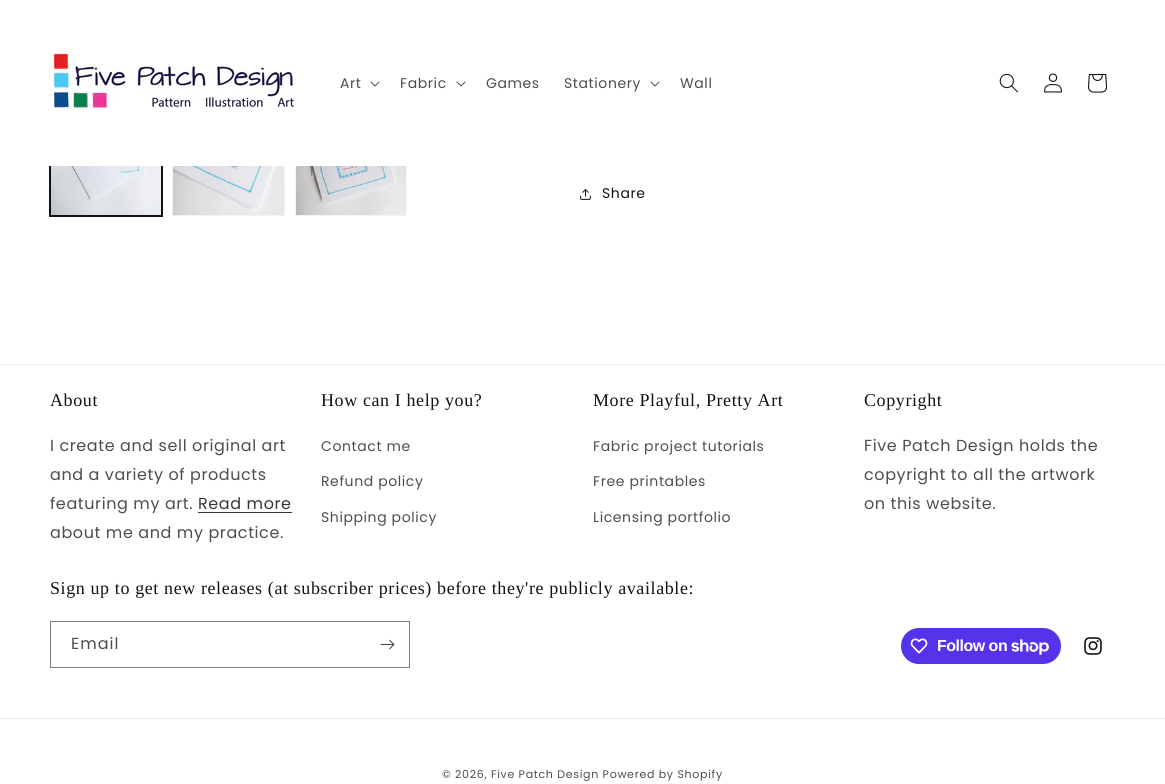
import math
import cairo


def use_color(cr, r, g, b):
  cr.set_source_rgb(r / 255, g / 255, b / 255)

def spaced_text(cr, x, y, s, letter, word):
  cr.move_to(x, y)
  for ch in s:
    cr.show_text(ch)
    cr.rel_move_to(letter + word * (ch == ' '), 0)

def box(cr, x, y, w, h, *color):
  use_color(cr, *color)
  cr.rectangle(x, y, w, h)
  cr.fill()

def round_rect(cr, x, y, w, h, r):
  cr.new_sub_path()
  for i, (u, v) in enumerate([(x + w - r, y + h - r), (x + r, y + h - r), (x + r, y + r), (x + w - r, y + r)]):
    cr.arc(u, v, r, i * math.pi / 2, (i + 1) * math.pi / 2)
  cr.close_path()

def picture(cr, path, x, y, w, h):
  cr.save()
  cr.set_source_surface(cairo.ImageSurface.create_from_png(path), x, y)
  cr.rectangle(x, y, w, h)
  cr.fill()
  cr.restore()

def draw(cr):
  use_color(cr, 255, 255, 255)
  cr.paint()
  cr.rectangle(49.5, 102.5, 113, 114)
  use_color(cr, 18, 18, 18)
  cr.set_line_width(1)
  cr.stroke()
  cr.rectangle(50.5, 103.5, 111, 112)
  cr.stroke()
  cr.rectangle(172.5, 103.5, 112, 112)
  use_color(cr, 243, 243, 243)
  cr.stroke()
  cr.rectangle(295.5, 103.5, 111, 112)
  cr.stroke()
  box(cr, 49, 102, 358, 64, 255, 255, 255)
  picture(cr, "img_01.png", 50, 52, 248, 57)
  picture(cr, "img_02.png", 370, 81, 10, 6)
  picture(cr, "img_02.png", 456, 81, 10, 6)
  picture(cr, "img_02.png", 650, 81, 10, 6)
  picture(cr, "img_03.png", 999, 73, 19, 20)
  picture(cr, "img_04.png", 1044, 73, 18, 20)
  picture(cr, "img_05.png", 1088, 74, 20, 19)
  picture(cr, "img_06.png", 51, 166, 110, 49)
  picture(cr, "img_07.png", 173, 166, 111, 49)
  picture(cr, "img_08.png", 296, 166, 110, 49)
  picture(cr, "img_09.png", 580, 189, 11, 11)
  box(cr, 0, 364, 1165, 1, 236, 236, 236)
  box(cr, 198, 512, 94, 1, 54, 54, 54)
  cr.rectangle(50.5, 621.5, 359, 46)
  use_color(cr, 125, 125, 125)
  cr.stroke()
  picture(cr, "img_10.png", 380, 639, 15, 11)
  use_color(cr, 84, 51, 235)
  round_rect(cr, 901, 628, 160, 36, 18)
  cr.fill()
  picture(cr, "img_11.png", 910, 638, 18, 16)
  picture(cr, "img_12.png", 1011, 639, 38, 16)
  picture(cr, "img_13.png", 1084, 637, 18, 18)
  box(cr, 0, 718, 1165, 1, 236, 236, 236)
  cr.select_font_face("Poppins")
  cr.set_font_size(14)
  use_color(cr, 77, 77, 77)
  spaced_text(cr, 340, 88, "Art", 0.6, 0)
  spaced_text(cr, 400, 88, "Fabric", 0.6, 0)
  spaced_text(cr, 486, 88, "Games", 0.6, 0)
  spaced_text(cr, 564, 88, "Stationery", 0.6, 0)
  spaced_text(cr, 680, 88, "Wall", 0.6, 0)
  use_color(cr, 18, 18, 18)
  spaced_text(cr, 602, 198, "Share", 0.6, 0)
  cr.select_font_face("Liberation Serif")
  cr.set_font_size(18)
  spaced_text(cr, 50, 406, "About", 0.6, 0)
  cr.select_font_face("Poppins")
  cr.set_font_size(16)
  use_color(cr, 77, 77, 77)
  spaced_text(cr, 50, 451, "I create and sell original art", 0.6, 0)
  spaced_text(cr, 50, 480, "and a variety of products", 0.6, 0)
  spaced_text(cr, 50, 509, "featuring my art.", 0.6, 0)
  use_color(cr, 54, 54, 54)
  spaced_text(cr, 198, 509, "Read more", 0.6, 0)
  use_color(cr, 77, 77, 77)
  spaced_text(cr, 50, 538, "about me and my practice.", 0.6, 0)
  cr.select_font_face("Liberation Serif")
  cr.set_font_size(18)
  use_color(cr, 18, 18, 18)
  spaced_text(cr, 321, 406, "How can I help you?", 0.6, 0)
  cr.select_font_face("Poppins")
  cr.set_font_size(14)
  use_color(cr, 77, 77, 77)
  spaced_text(cr, 321, 451, "Contact me", 0.6, 0)
  spaced_text(cr, 321, 486, "Refund policy", 0.6, 0)
  spaced_text(cr, 321, 522, "Shipping policy", 0.6, 0)
  cr.select_font_face("Liberation Serif")
  cr.set_font_size(18)
  use_color(cr, 18, 18, 18)
  spaced_text(cr, 593, 406, "More Playful, Pretty Art", 0.6, 0)
  cr.select_font_face("Poppins")
  cr.set_font_size(14)
  use_color(cr, 77, 77, 77)
  spaced_text(cr, 593, 451, "Fabric project tutorials", 0.6, 0)
  spaced_text(cr, 593, 486, "Free printables", 0.6, 0)
  spaced_text(cr, 593, 522, "Licensing portfolio", 0.6, 0)
  cr.select_font_face("Liberation Serif")
  cr.set_font_size(18)
  use_color(cr, 18, 18, 18)
  spaced_text(cr, 864, 406, "Copyright", 0.6, 0)
  cr.select_font_face("Poppins")
  cr.set_font_size(16)
  use_color(cr, 77, 77, 77)
  spaced_text(cr, 864, 451, "Five Patch Design holds the", 0.6, 0)
  spaced_text(cr, 864, 480, "copyright to all the artwork", 0.6, 0)
  spaced_text(cr, 864, 509, "on this website.", 0.6, 0)
  cr.select_font_face("Liberation Serif")
  cr.set_font_size(18)
  use_color(cr, 18, 18, 18)
  spaced_text(cr, 50, 594, "Sign up to get new releases (at subscriber prices) before they're publicly available:", 0.6, 0)
  cr.select_font_face("Poppins")
  cr.set_font_size(16)
  use_color(cr, 77, 77, 77)
  spaced_text(cr, 71, 649, "Email", 1, 0)
  cr.select_font_face("Liberation Sans", cairo.FONT_SLANT_NORMAL, cairo.FONT_WEIGHT_BOLD)
  use_color(cr, 255, 255, 255)
  spaced_text(cr, 937, 651, "Follow on", -0.5, 0)
  cr.select_font_face("Poppins")
  cr.set_font_size(11)
  use_color(cr, 77, 77, 77)
  spaced_text(cr, 442, 778, "© 2026, Five Patch Design Powered by Shopify", 0.7, 0)


surface = cairo.ImageSurface(cairo.FORMAT_RGB24, 1165, 784)
cr = cairo.Context(surface)
options = cairo.FontOptions()
options.set_hint_metrics(cairo.HINT_METRICS_OFF)
options.set_hint_style(cairo.HINT_STYLE_NONE)
cr.set_font_options(options)
cr.set_miter_limit(4)
draw(cr)
surface.write_to_png("out.png")
